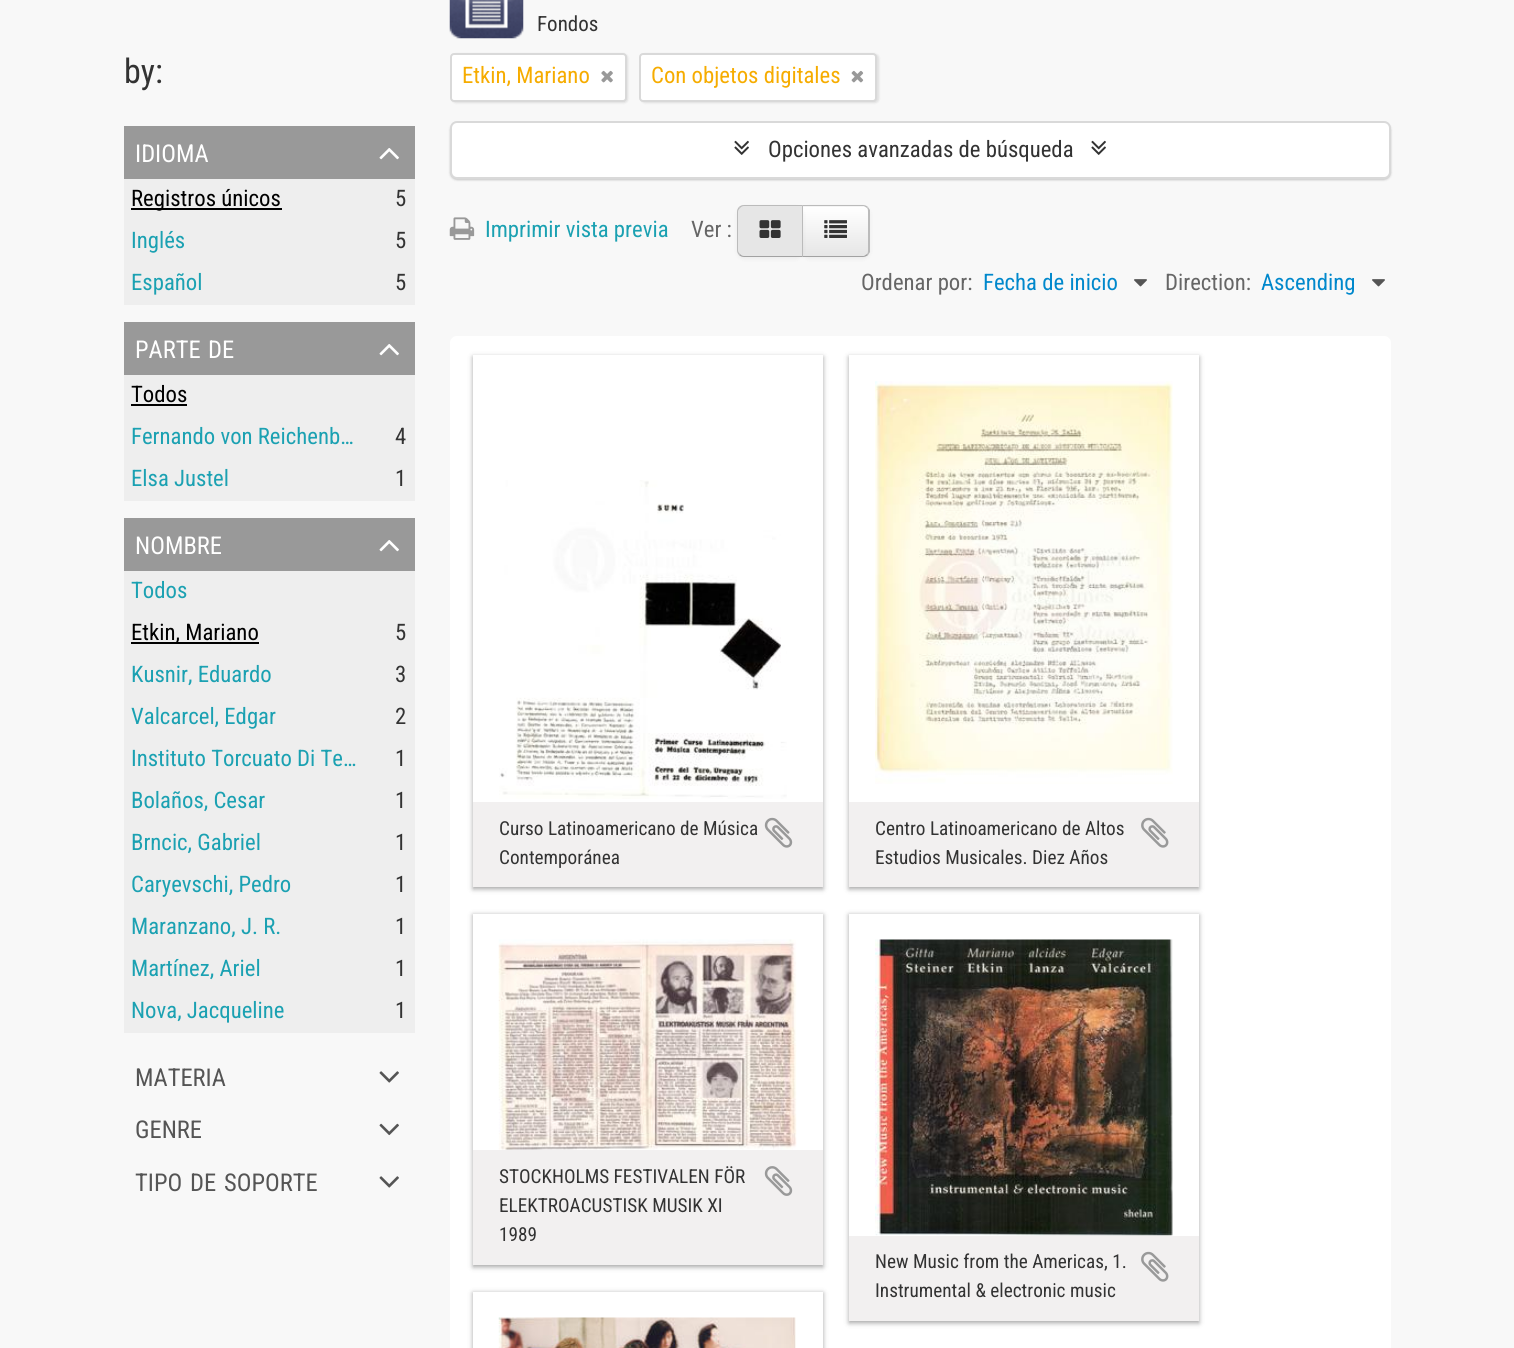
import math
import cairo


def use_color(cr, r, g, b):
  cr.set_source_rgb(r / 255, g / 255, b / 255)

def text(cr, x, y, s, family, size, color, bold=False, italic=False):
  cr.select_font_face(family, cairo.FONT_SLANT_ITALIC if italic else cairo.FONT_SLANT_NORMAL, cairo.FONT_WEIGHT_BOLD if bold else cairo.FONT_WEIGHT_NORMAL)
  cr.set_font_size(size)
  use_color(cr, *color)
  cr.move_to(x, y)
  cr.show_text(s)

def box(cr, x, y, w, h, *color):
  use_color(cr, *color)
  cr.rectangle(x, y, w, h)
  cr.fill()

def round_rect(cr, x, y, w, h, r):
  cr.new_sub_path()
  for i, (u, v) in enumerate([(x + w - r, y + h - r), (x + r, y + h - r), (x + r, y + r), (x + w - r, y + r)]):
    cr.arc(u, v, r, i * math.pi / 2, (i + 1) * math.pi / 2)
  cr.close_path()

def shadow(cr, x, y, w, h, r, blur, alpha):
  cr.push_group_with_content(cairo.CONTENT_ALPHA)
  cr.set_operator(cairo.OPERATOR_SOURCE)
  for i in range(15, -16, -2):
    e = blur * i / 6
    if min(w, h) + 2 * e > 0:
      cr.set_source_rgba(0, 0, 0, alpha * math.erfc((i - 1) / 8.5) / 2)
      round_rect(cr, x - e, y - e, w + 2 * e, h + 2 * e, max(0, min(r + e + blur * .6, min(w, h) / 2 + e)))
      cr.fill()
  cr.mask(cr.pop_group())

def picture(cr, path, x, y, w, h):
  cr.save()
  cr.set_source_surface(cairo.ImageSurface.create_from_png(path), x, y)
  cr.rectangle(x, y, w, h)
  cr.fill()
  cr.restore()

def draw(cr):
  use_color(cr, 248, 248, 248)
  cr.paint()
  box(cr, 124, 126, 291, 53, 153, 153, 153)
  picture(cr, "img_01.png", 379, 148, 20, 12)
  box(cr, 124, 179, 291, 126, 238, 238, 238)
  box(cr, 131, 208, 151, 2, 0, 0, 0)
  box(cr, 124, 322, 291, 53, 153, 153, 153)
  picture(cr, "img_01.png", 379, 344, 20, 12)
  box(cr, 124, 375, 291, 126, 238, 238, 238)
  box(cr, 131, 404, 56, 2, 0, 0, 0)
  box(cr, 124, 518, 291, 53, 153, 153, 153)
  picture(cr, "img_01.png", 379, 540, 20, 12)
  box(cr, 124, 571, 291, 462, 238, 238, 238)
  box(cr, 131, 642, 128, 2, 0, 0, 0)
  picture(cr, "img_02.png", 379, 1071, 20, 12)
  picture(cr, "img_03.png", 379, 1123, 20, 13)
  picture(cr, "img_02.png", 379, 1176, 20, 12)
  picture(cr, "img_04.png", 449, 0, 75, 39)
  use_color(cr, 0, 0, 0)
  shadow(cr, 452, 54, 176, 49, 4, 1, 0.1)
  use_color(cr, 255, 255, 255)
  round_rect(cr, 451, 54, 175, 47, 3)
  cr.fill_preserve()
  use_color(cr, 217, 217, 217)
  cr.stroke()
  picture(cr, "img_05.png", 601, 70, 12, 13)
  use_color(cr, 0, 0, 0)
  shadow(cr, 641, 54, 238, 49, 4, 1, 0.1)
  use_color(cr, 255, 255, 255)
  round_rect(cr, 640, 54, 236, 47, 3)
  cr.fill_preserve()
  use_color(cr, 217, 217, 217)
  cr.stroke()
  picture(cr, "img_06.png", 851, 70, 13, 13)
  use_color(cr, 0, 0, 0)
  shadow(cr, 450, 123, 941, 57, 7, 1, 0.2)
  use_color(cr, 255, 255, 255)
  round_rect(cr, 451, 122, 939, 56, 6)
  cr.fill_preserve()
  use_color(cr, 217, 217, 217)
  cr.stroke()
  picture(cr, "img_07.png", 734, 140, 15, 15)
  picture(cr, "img_07.png", 1091, 140, 15, 15)
  picture(cr, "img_08.png", 449, 217, 26, 23)
  use_color(cr, 0, 0, 0)
  shadow(cr, 802, 207, 68, 52, 7, 2, 0.05)
  use_color(cr, 245, 245, 245)
  cr.new_path()
  cr.move_to(802, 205)
  cr.line_to(863, 205)
  cr.curve_to(867, 205, 870, 208, 870, 212)
  cr.line_to(870, 250)
  cr.curve_to(870, 254, 867, 257, 863, 257)
  cr.line_to(802, 257)
  cr.close_path()
  cr.fill()
  cr.save()
  cr.new_path()
  cr.move_to(802, 205)
  cr.line_to(863, 205)
  cr.curve_to(867, 205, 870, 208, 870, 212)
  cr.line_to(870, 250)
  cr.curve_to(870, 254, 867, 257, 863, 257)
  cr.line_to(802, 257)
  cr.close_path()
  cr.clip()
  gradient = cairo.LinearGradient(836, 207, 836, 256)
  gradient.add_color_stop_rgba(0, 1, 1, 1, 1)
  gradient.add_color_stop_rgba(1, 0.902, 0.902, 0.902, 1)
  cr.set_source(gradient)
  cr.rectangle(803, 207, 67, 49)
  cr.fill()
  cr.restore()
  use_color(cr, 187, 187, 187)
  cr.new_path()
  cr.move_to(802, 205)
  cr.line_to(803, 206)
  cr.line_to(864, 206)
  cr.line_to(867, 208)
  cr.line_to(868, 207)
  cr.curve_to(867, 206, 865, 205, 863, 205)
  cr.close_path()
  cr.fill()
  cr.new_path()
  cr.move_to(868, 207)
  cr.line_to(870, 210)
  cr.line_to(870, 252)
  cr.line_to(868, 255)
  cr.line_to(867, 254)
  cr.curve_to(868, 253, 868, 252, 868, 250)
  cr.line_to(868, 212)
  cr.curve_to(868, 210, 868, 209, 867, 208)
  cr.close_path()
  cr.fill()
  use_color(cr, 162, 162, 162)
  cr.new_path()
  cr.move_to(868, 255)
  cr.curve_to(867, 256, 865, 257, 863, 257)
  cr.line_to(802, 257)
  cr.line_to(803, 256)
  cr.line_to(864, 256)
  cr.line_to(867, 254)
  cr.close_path()
  cr.fill()
  use_color(cr, 0, 0, 0)
  shadow(cr, 737, 207, 66, 52, 7, 2, 0.05)
  use_color(cr, 230, 230, 230)
  cr.new_path()
  cr.move_to(744, 205)
  cr.line_to(803, 205)
  cr.line_to(803, 257)
  cr.line_to(744, 257)
  cr.curve_to(740, 257, 737, 254, 737, 250)
  cr.line_to(737, 212)
  cr.curve_to(737, 208, 740, 205, 744, 205)
  cr.close_path()
  cr.fill()
  use_color(cr, 187, 187, 187)
  cr.new_path()
  cr.move_to(744, 205)
  cr.curve_to(742, 205, 740, 206, 739, 207)
  cr.line_to(740, 208)
  cr.curve_to(741, 207, 742, 206, 744, 206)
  cr.line_to(802, 206)
  cr.line_to(803, 205)
  cr.close_path()
  cr.fill()
  cr.new_path()
  cr.move_to(803, 257)
  cr.line_to(803, 205)
  cr.line_to(802, 206)
  cr.line_to(802, 256)
  cr.close_path()
  cr.fill()
  use_color(cr, 162, 162, 162)
  cr.new_path()
  cr.move_to(803, 257)
  cr.line_to(802, 256)
  cr.line_to(744, 256)
  cr.curve_to(742, 256, 741, 255, 740, 254)
  cr.line_to(739, 255)
  cr.curve_to(740, 256, 742, 257, 744, 257)
  cr.close_path()
  cr.fill()
  use_color(cr, 187, 187, 187)
  cr.new_path()
  cr.move_to(739, 207)
  cr.curve_to(738, 208, 737, 210, 737, 212)
  cr.line_to(737, 250)
  cr.curve_to(737, 252, 738, 254, 739, 255)
  cr.line_to(740, 254)
  cr.curve_to(739, 253, 738, 252, 738, 250)
  cr.line_to(738, 212)
  cr.curve_to(738, 210, 739, 209, 740, 208)
  cr.close_path()
  cr.fill()
  picture(cr, "img_09.png", 759, 220, 22, 18)
  picture(cr, "img_10.png", 824, 220, 23, 18)
  picture(cr, "img_11.png", 1134, 279, 13, 8)
  picture(cr, "img_11.png", 1372, 279, 13, 8)
  use_color(cr, 255, 255, 255)
  round_rect(cr, 450, 336, 941, 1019, 7)
  cr.fill()
  use_color(cr, 25, 25, 25)
  shadow(cr, 473, 357, 350, 532, 0, 2.5, 0.4)
  box(cr, 473, 355, 350, 447, 255, 255, 255)
  picture(cr, "img_12.png", 499, 480, 288, 319)
  box(cr, 473, 802, 350, 85, 242, 240, 240)
  picture(cr, "img_13.png", 764, 817, 29, 31)
  use_color(cr, 25, 25, 25)
  shadow(cr, 849, 357, 350, 532, 0, 2.5, 0.4)
  box(cr, 849, 355, 350, 447, 255, 255, 255)
  picture(cr, "img_14.png", 875, 381, 298, 403)
  box(cr, 849, 802, 350, 85, 242, 240, 240)
  picture(cr, "img_15.png", 1141, 817, 28, 31)
  use_color(cr, 25, 25, 25)
  shadow(cr, 473, 915, 350, 352, 0, 2.5, 0.4)
  box(cr, 473, 914, 350, 236, 255, 255, 255)
  picture(cr, "img_16.png", 498, 939, 299, 211)
  box(cr, 473, 1150, 350, 115, 242, 240, 240)
  picture(cr, "img_17.png", 764, 1166, 29, 30)
  use_color(cr, 25, 25, 25)
  shadow(cr, 849, 915, 350, 408, 0, 2.5, 0.4)
  box(cr, 849, 914, 350, 322, 255, 255, 255)
  picture(cr, "img_18.png", 875, 939, 298, 297)
  box(cr, 849, 1236, 350, 85, 242, 240, 240)
  picture(cr, "img_15.png", 1141, 1251, 28, 31)
  use_color(cr, 25, 25, 25)
  shadow(cr, 473, 1293, 350, 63, 0, 2.5, 0.4)
  box(cr, 473, 1292, 350, 56, 255, 255, 255)
  picture(cr, "img_19.png", 498, 1317, 298, 31)
  text(cr, 124, 83, "by:", "Roboto Condensed", 34, (51, 51, 51))
  text(cr, 135, 162, "IDIOMA", "Roboto Condensed", 24.5, (255, 255, 255))
  text(cr, 131, 206, "Registros únicos", "Roboto Condensed", 22.75, (0, 0, 0))
  text(cr, 395, 206, "5", "Roboto Condensed", 22.75, (51, 51, 51))
  text(cr, 131, 248, "Inglés", "Roboto Condensed", 22.75, (27, 161, 178))
  text(cr, 395, 248, "5", "Roboto Condensed", 22.75, (51, 51, 51))
  text(cr, 131, 290, "Español", "Roboto Condensed", 22.75, (27, 161, 178))
  text(cr, 395, 290, "5", "Roboto Condensed", 22.75, (51, 51, 51))
  text(cr, 135, 358, "PARTE", "Roboto Condensed", 24.5, (255, 255, 255))
  text(cr, 208, 358, "DE", "Roboto Condensed", 24.5, (255, 255, 255))
  text(cr, 131, 402, "Todos", "Roboto Condensed", 22.75, (0, 0, 0))
  text(cr, 131, 444, "Fernando von Reichenb…", "Roboto Condensed", 22.75, (27, 161, 178))
  text(cr, 395, 444, "4", "Roboto Condensed", 22.75, (51, 51, 51))
  text(cr, 131, 486, "Elsa Justel", "Roboto Condensed", 22.75, (27, 161, 178))
  text(cr, 395, 486, "1", "Roboto Condensed", 22.75, (51, 51, 51))
  text(cr, 135, 554, "NOMBRE", "Roboto Condensed", 24.5, (255, 255, 255))
  text(cr, 131, 598, "Todos", "Roboto Condensed", 22.75, (27, 161, 178))
  text(cr, 131, 640, "Etkin, Mariano", "Roboto Condensed", 22.75, (0, 0, 0))
  text(cr, 395, 640, "5", "Roboto Condensed", 22.75, (51, 51, 51))
  text(cr, 131, 682, "Kusnir, Eduardo", "Roboto Condensed", 22.75, (27, 161, 178))
  text(cr, 395, 682, "3", "Roboto Condensed", 22.75, (51, 51, 51))
  text(cr, 131, 724, "Valcarcel, Edgar", "Roboto Condensed", 22.75, (27, 161, 178))
  text(cr, 395, 724, "2", "Roboto Condensed", 22.75, (51, 51, 51))
  text(cr, 131, 766, "Instituto Torcuato Di Te…", "Roboto Condensed", 22.75, (27, 161, 178))
  text(cr, 395, 766, "1", "Roboto Condensed", 22.75, (51, 51, 51))
  text(cr, 131, 808, "Bolaños, Cesar", "Roboto Condensed", 22.75, (27, 161, 178))
  text(cr, 395, 808, "1", "Roboto Condensed", 22.75, (51, 51, 51))
  text(cr, 131, 850, "Brncic, Gabriel", "Roboto Condensed", 22.75, (27, 161, 178))
  text(cr, 395, 850, "1", "Roboto Condensed", 22.75, (51, 51, 51))
  text(cr, 131, 892, "Caryevschi, Pedro", "Roboto Condensed", 22.75, (27, 161, 178))
  text(cr, 395, 892, "1", "Roboto Condensed", 22.75, (51, 51, 51))
  text(cr, 131, 934, "Maranzano, J. R.", "Roboto Condensed", 22.75, (27, 161, 178))
  text(cr, 395, 934, "1", "Roboto Condensed", 22.75, (51, 51, 51))
  text(cr, 131, 976, "Martínez, Ariel", "Roboto Condensed", 22.75, (27, 161, 178))
  text(cr, 395, 976, "1", "Roboto Condensed", 22.75, (51, 51, 51))
  text(cr, 131, 1018, "Nova, Jacqueline", "Roboto Condensed", 22.75, (27, 161, 178))
  text(cr, 395, 1018, "1", "Roboto Condensed", 22.75, (51, 51, 51))
  text(cr, 135, 1086, "MATERIA", "Roboto Condensed", 24.5, (85, 85, 85))
  text(cr, 135, 1138, "GENRE", "Roboto Condensed", 24.5, (85, 85, 85))
  text(cr, 135, 1191, "TIPO", "Roboto Condensed", 24.5, (85, 85, 85))
  text(cr, 190, 1191, "DE", "Roboto Condensed", 24.5, (85, 85, 85))
  text(cr, 224, 1191, "SOPORTE", "Roboto Condensed", 24.5, (85, 85, 85))
  text(cr, 537, 31, "Fondos", "Roboto Condensed", 21, (51, 51, 51))
  text(cr, 462, 83, "Etkin, Mariano", "Roboto Condensed", 22.75, (246, 172, 0))
  text(cr, 651, 83, "Con objetos digitales", "Roboto Condensed", 22.75, (246, 172, 0))
  text(cr, 768, 157, "Opciones avanzadas de búsqueda", "Roboto Condensed", 22.75, (51, 51, 51))
  text(cr, 485, 237, "Imprimir vista previa", "Roboto Condensed", 22.75, (27, 161, 178))
  text(cr, 691, 237, "Ver :", "Roboto Condensed", 22.75, (102, 102, 102))
  text(cr, 861, 290, "Ordenar por:", "Roboto Condensed", 22.75, (102, 102, 102))
  text(cr, 983, 290, "Fecha de inicio", "Roboto Condensed", 22.75, (0, 136, 204))
  text(cr, 1165, 290, "Direction:", "Roboto Condensed", 22.75, (102, 102, 102))
  text(cr, 1261, 290, "Ascending", "Roboto Condensed", 22.75, (0, 136, 204))
  text(cr, 499, 835, "Curso Latinoamericano de Música", "Roboto Condensed", 19.25, (51, 51, 51))
  text(cr, 499, 864, "Contemporánea", "Roboto Condensed", 19.25, (51, 51, 51))
  text(cr, 875, 835, "Centro Latinoamericano de Altos", "Roboto Condensed", 19.25, (51, 51, 51))
  text(cr, 875, 864, "Estudios Musicales. Diez Años", "Roboto Condensed", 19.25, (51, 51, 51))
  text(cr, 499, 1183, "STOCKHOLMS FESTIVALEN FÖR", "Roboto Condensed", 19.25, (51, 51, 51))
  text(cr, 499, 1212, "ELEKTROACUSTISK MUSIK XI", "Roboto Condensed", 19.25, (51, 51, 51))
  text(cr, 499, 1241, "1989", "Roboto Condensed", 19.25, (51, 51, 51))
  text(cr, 875, 1268, "New Music from the Americas, 1.", "Roboto Condensed", 19.25, (51, 51, 51))
  text(cr, 875, 1297, "Instrumental & electronic music", "Roboto Condensed", 19.25, (51, 51, 51))


surface = cairo.ImageSurface(cairo.FORMAT_RGB24, 1514, 1348)
cr = cairo.Context(surface)
options = cairo.FontOptions()
options.set_hint_metrics(cairo.HINT_METRICS_OFF)
options.set_hint_style(cairo.HINT_STYLE_NONE)
cr.set_font_options(options)
cr.set_miter_limit(4)
draw(cr)
surface.write_to_png("out.png")
